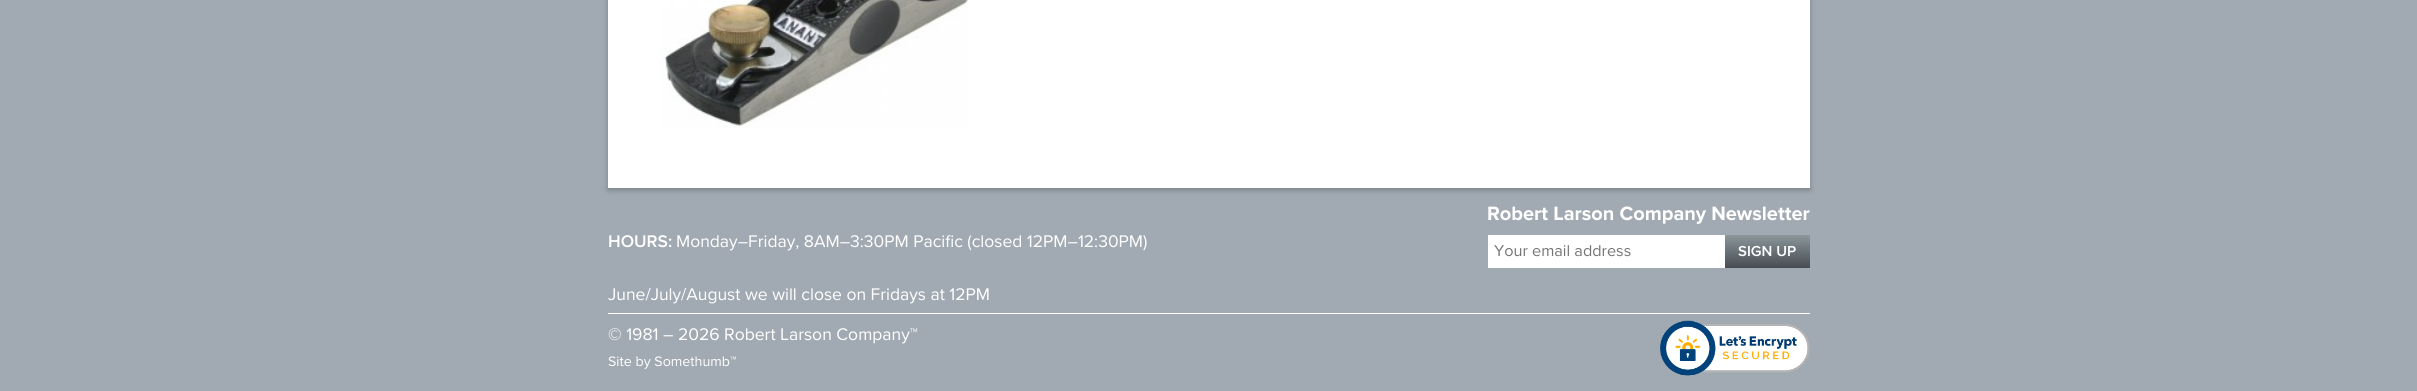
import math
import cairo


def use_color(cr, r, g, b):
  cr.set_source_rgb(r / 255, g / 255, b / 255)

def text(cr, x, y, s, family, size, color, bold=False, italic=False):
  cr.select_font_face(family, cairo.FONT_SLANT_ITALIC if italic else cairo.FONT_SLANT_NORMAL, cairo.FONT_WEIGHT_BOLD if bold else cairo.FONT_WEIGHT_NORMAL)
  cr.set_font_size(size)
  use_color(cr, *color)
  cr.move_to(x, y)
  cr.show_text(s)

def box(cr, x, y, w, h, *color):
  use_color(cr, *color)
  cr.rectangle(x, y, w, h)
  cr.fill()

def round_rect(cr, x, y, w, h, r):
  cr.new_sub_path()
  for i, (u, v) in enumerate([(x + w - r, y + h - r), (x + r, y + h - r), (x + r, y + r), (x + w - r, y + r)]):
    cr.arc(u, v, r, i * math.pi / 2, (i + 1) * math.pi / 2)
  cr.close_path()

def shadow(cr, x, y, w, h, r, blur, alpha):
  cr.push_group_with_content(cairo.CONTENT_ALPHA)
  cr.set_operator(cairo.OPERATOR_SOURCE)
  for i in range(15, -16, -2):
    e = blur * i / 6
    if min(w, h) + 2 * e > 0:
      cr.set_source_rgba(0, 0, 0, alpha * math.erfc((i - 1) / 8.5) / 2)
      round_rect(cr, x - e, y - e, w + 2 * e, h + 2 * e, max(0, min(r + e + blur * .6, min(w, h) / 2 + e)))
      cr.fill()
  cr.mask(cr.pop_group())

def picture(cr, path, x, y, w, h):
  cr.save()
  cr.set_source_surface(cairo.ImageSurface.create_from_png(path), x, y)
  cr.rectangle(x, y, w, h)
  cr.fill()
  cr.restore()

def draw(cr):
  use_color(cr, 161, 170, 178)
  cr.paint()
  use_color(cr, 0, 0, 0)
  shadow(cr, 608, -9, 1202, 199, 0, 3, 0.25)
  box(cr, 608, 0, 1202, 188, 255, 255, 255)
  picture(cr, "img_01.png", 659, 0, 309, 128)
  box(cr, 1488, 235, 237, 33, 255, 255, 255)
  gradient = cairo.LinearGradient(1768, 235, 1768, 268)
  gradient.add_color_stop_rgba(0, 0.545, 0.592, 0.608, 1)
  gradient.add_color_stop_rgba(1, 0.275, 0.298, 0.322, 1)
  cr.set_source(gradient)
  cr.rectangle(1725, 235, 85, 33)
  cr.fill()
  box(cr, 608, 313, 1202, 1, 255, 255, 255)
  picture(cr, "img_02.png", 1660, 320, 150, 56)
  text(cr, 608, 247, "HOURS:", "Proxima Nova SemiBold", 17.5, (255, 255, 255))
  text(cr, 676, 247, "Monday–Friday, 8AM–3:30PM Pacific (closed 12PM–12:30PM)", "Proxima Nova", 17.5, (255, 255, 255))
  text(cr, 608, 300, "June/July/August we will close on Fridays at 12PM", "Proxima Nova", 17.5, (255, 255, 255))
  text(cr, 1487, 220, "Robert Larson Company Newsletter", "Proxima Nova", 20, (255, 255, 255), bold=True)
  text(cr, 1494, 256, "Your email address", "Proxima Nova", 16.25, (117, 117, 117))
  text(cr, 1738, 256, "SIGN UP", "Proxima Nova SemiBold", 15, (255, 255, 255))
  text(cr, 608, 340, "© 1981 – 2026 Robert Larson Company™", "Proxima Nova", 17.5, (255, 255, 255))
  text(cr, 608, 366, "Site by Somethumb™", "Proxima Nova", 14.25, (255, 255, 255))


surface = cairo.ImageSurface(cairo.FORMAT_RGB24, 2417, 391)
cr = cairo.Context(surface)
options = cairo.FontOptions()
options.set_hint_metrics(cairo.HINT_METRICS_OFF)
options.set_hint_style(cairo.HINT_STYLE_NONE)
cr.set_font_options(options)
cr.set_miter_limit(4)
draw(cr)
surface.write_to_png("out.png")
